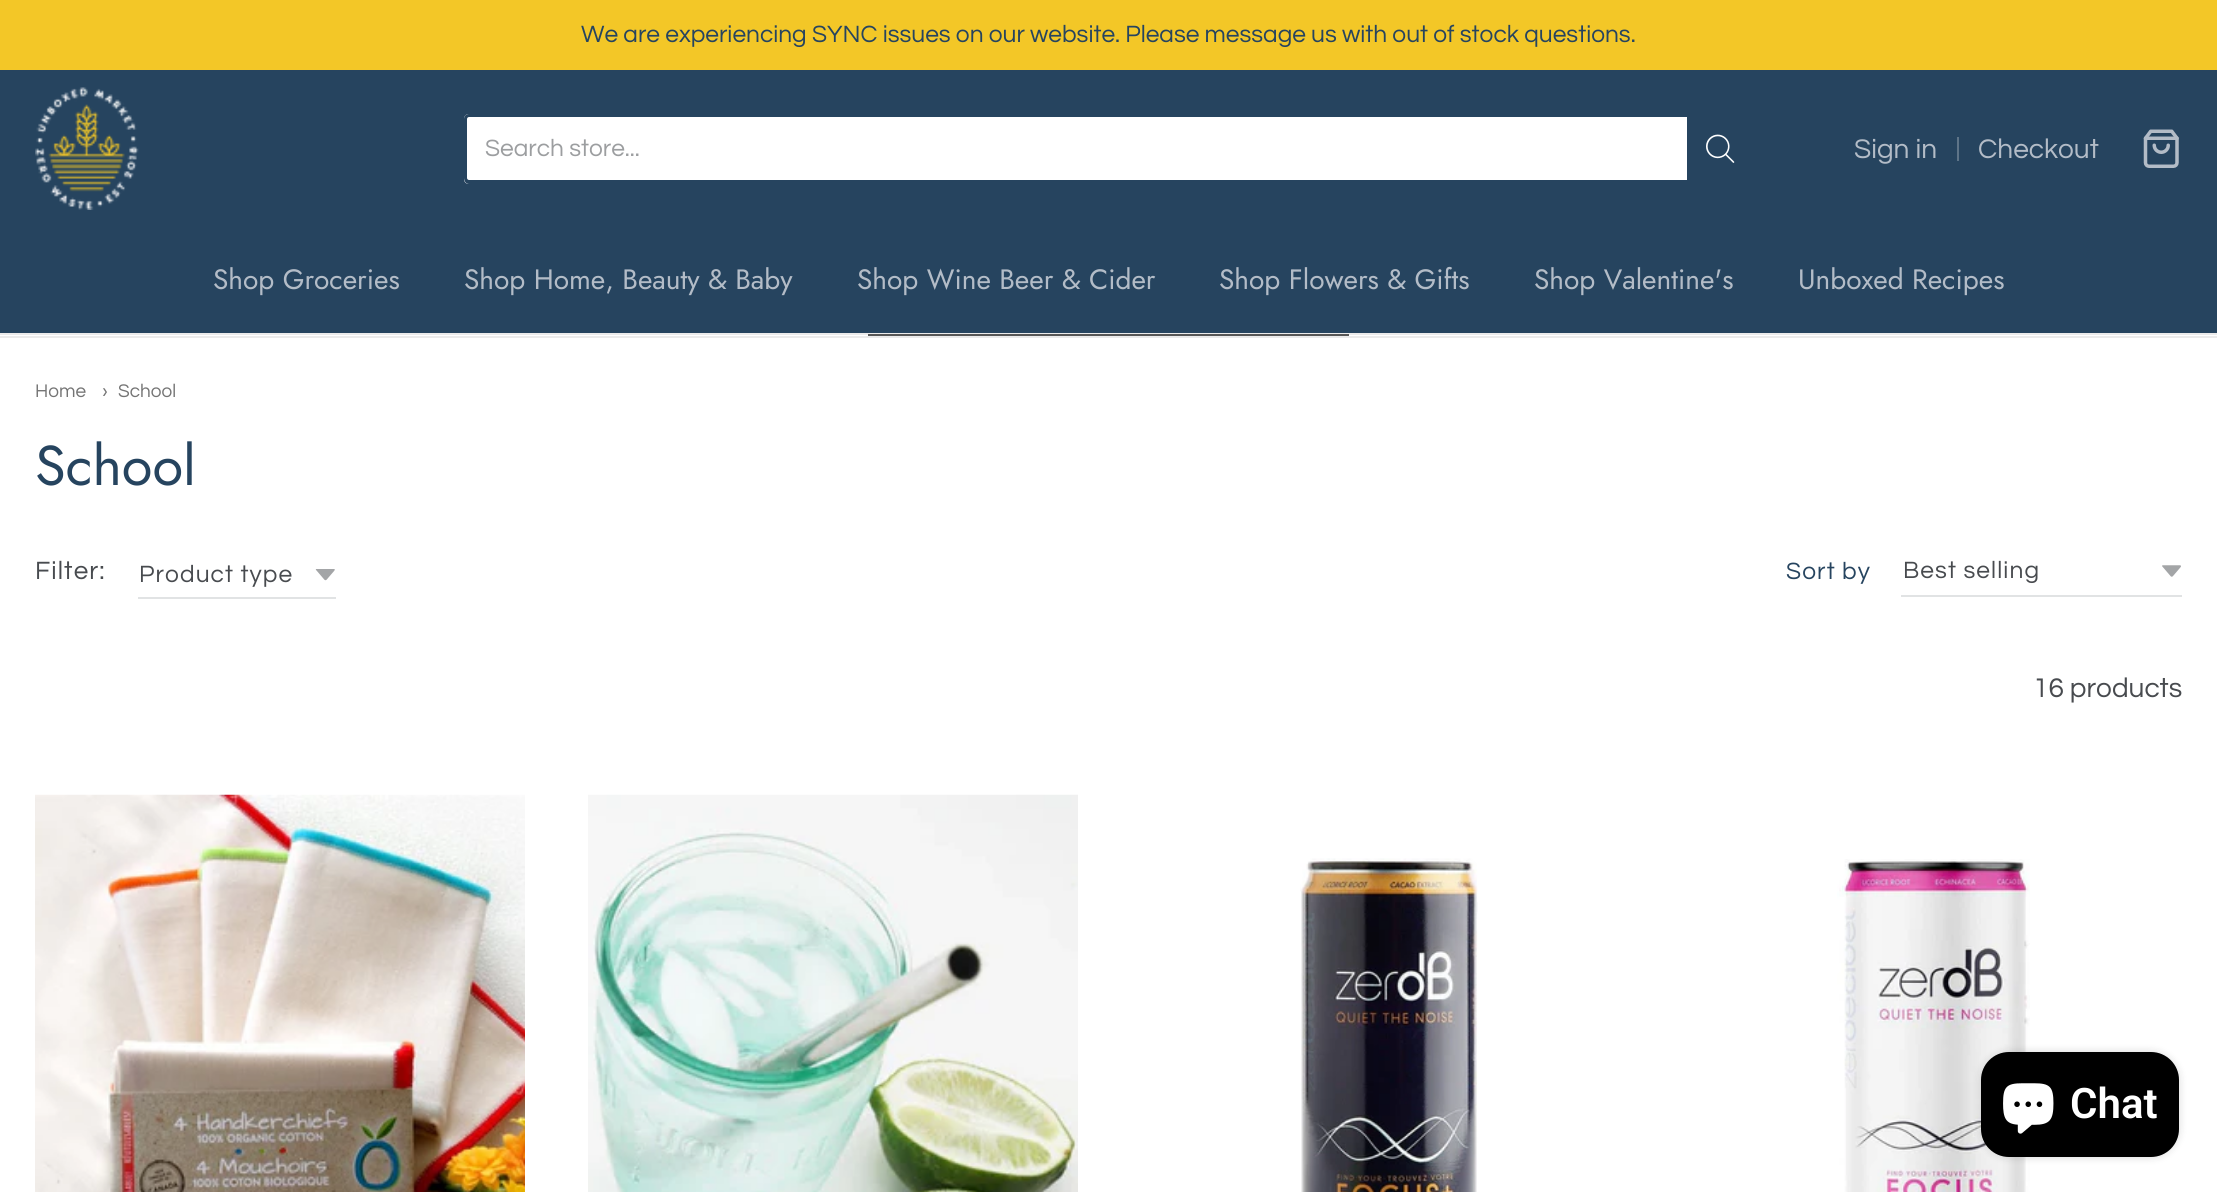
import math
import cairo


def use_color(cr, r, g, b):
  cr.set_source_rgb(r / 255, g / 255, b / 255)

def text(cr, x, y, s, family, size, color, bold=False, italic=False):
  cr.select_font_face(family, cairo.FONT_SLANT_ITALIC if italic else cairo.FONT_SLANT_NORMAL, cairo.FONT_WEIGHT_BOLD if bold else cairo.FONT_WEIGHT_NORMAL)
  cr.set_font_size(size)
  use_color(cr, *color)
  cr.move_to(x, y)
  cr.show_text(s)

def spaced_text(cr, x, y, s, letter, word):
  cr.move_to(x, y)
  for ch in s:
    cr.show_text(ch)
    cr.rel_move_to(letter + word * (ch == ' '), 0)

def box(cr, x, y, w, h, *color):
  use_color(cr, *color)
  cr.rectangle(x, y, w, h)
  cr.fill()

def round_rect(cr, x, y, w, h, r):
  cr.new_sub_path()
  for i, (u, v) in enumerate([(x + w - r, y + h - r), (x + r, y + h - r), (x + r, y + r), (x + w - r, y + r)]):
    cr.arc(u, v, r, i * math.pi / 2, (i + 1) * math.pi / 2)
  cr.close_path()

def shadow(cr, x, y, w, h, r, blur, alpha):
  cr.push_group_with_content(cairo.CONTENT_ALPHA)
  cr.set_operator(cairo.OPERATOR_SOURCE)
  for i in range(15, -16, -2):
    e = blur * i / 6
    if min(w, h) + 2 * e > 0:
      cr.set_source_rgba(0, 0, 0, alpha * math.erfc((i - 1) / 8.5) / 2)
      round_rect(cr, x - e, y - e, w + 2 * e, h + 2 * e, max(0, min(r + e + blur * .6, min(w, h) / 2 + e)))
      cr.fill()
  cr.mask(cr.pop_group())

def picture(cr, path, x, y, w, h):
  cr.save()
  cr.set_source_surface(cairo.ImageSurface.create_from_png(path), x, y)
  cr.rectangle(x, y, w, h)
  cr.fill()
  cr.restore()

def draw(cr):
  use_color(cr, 255, 255, 255)
  cr.paint()
  box(cr, 0, 333, 2217, 2, 235, 235, 235)
  box(cr, 0, 0, 2217, 70, 243, 199, 39)
  box(cr, 0, 70, 2217, 263, 38, 68, 95)
  picture(cr, "img_01.png", 35, 87, 104, 123)
  use_color(cr, 255, 255, 255)
  cr.new_path()
  cr.move_to(469, 114)
  cr.line_to(1687, 114)
  cr.line_to(1687, 184)
  cr.line_to(469, 184)
  cr.curve_to(466, 184, 464, 182, 464, 179)
  cr.line_to(464, 119)
  cr.curve_to(464, 116, 466, 114, 469, 114)
  cr.close_path()
  cr.fill()
  use_color(cr, 38, 68, 95)
  cr.set_fill_rule(cairo.FILL_RULE_EVEN_ODD)
  cr.new_path()
  cr.move_to(469, 114)
  cr.line_to(1687, 114)
  cr.line_to(1687, 184)
  cr.line_to(469, 184)
  cr.curve_to(466, 184, 464, 181, 464, 178)
  cr.line_to(464, 119)
  cr.curve_to(464, 116, 466, 114, 469, 114)
  cr.close_path()
  cr.move_to(469, 117)
  cr.line_to(1687, 117)
  cr.line_to(1687, 180)
  cr.line_to(469, 180)
  cr.curve_to(468, 180, 467, 179, 467, 178)
  cr.line_to(467, 119)
  cr.curve_to(467, 118, 468, 117, 469, 117)
  cr.close_path()
  cr.fill()
  picture(cr, "img_02.png", 1706, 134, 29, 29)
  box(cr, 1957, 137, 2, 24, 94, 116, 136)
  picture(cr, "img_03.png", 2143, 129, 36, 39)
  box(cr, 0, 336, 2217, 2, 235, 235, 235)
  box(cr, 868, 334, 481, 2, 86, 86, 86)
  picture(cr, "img_04.png", 315, 569, 20, 12)
  box(cr, 138, 597, 198, 2, 225, 227, 228)
  picture(cr, "img_05.png", 2162, 565, 19, 12)
  box(cr, 1901, 595, 281, 2, 225, 227, 228)
  picture(cr, "img_06.png", 35, 794, 490, 398)
  picture(cr, "img_07.png", 588, 794, 490, 398)
  picture(cr, "img_08.png", 1300, 858, 178, 334)
  picture(cr, "img_09.png", 1837, 859, 193, 333)
  use_color(cr, 0, 0, 0)
  shadow(cr, 1981, 1052, 198, 105, 28, 4.5, 0.15)
  use_color(cr, 0, 0, 0)
  round_rect(cr, 1981, 1052, 198, 105, 28)
  cr.fill()
  picture(cr, "img_10.png", 2003, 1083, 51, 51)
  text(cr, 581, 42, "We are experiencing SYNC issues on our website. Please message us with out of stock questions.", "Questrial", 24.5, (38, 68, 95))
  text(cr, 485, 156, "Search store...", "Questrial", 24.5, (156, 158, 160))
  text(cr, 1854, 158, "Sign in", "Questrial", 28, (179, 188, 199))
  text(cr, 1978, 158, "Checkout", "Questrial", 28, (179, 188, 199))
  text(cr, 213, 289, "Shop Groceries", "Jost", 28, (179, 188, 199))
  text(cr, 464, 289, "Shop Home, Beauty & Baby", "Jost", 28, (179, 188, 199))
  text(cr, 857, 289, "Shop Wine Beer & Cider", "Jost", 28, (179, 188, 199))
  text(cr, 1219, 289, "Shop Flowers & Gifts", "Jost", 28, (179, 188, 199))
  text(cr, 1534, 289, "Shop Valentine's", "Jost", 28, (179, 188, 199))
  text(cr, 1798, 289, "Unboxed Recipes", "Jost", 28, (179, 188, 199))
  text(cr, 35, 397, "Home", "Questrial", 19, (116, 116, 116))
  text(cr, 102, 397, "›", "Questrial", 19, (116, 116, 116))
  text(cr, 118, 397, "School", "Questrial", 19, (116, 116, 116))
  text(cr, 35, 485, "School", "Jost", 56, (38, 68, 95))
  cr.select_font_face("Questrial")
  cr.set_font_size(26)
  use_color(cr, 72, 75, 79)
  spaced_text(cr, 35, 579, "Filter:", 1.1, 0)
  cr.set_font_size(24.5)
  spaced_text(cr, 139, 582, "Product type", 1.1, 0)
  use_color(cr, 38, 68, 95)
  spaced_text(cr, 1786, 579, "Sort by", 1.1, 0)
  use_color(cr, 72, 75, 79)
  spaced_text(cr, 1903, 578, "Best selling", 1.1, 0)
  text(cr, 2033, 697, "16 products", "Questrial", 28, (72, 75, 79))
  text(cr, 2070, 1118, "Chat", "Roboto SemiBold", 42, (255, 255, 255))


surface = cairo.ImageSurface(cairo.FORMAT_RGB24, 2217, 1192)
cr = cairo.Context(surface)
options = cairo.FontOptions()
options.set_hint_metrics(cairo.HINT_METRICS_OFF)
options.set_hint_style(cairo.HINT_STYLE_NONE)
cr.set_font_options(options)
cr.set_miter_limit(4)
draw(cr)
surface.write_to_png("out.png")
